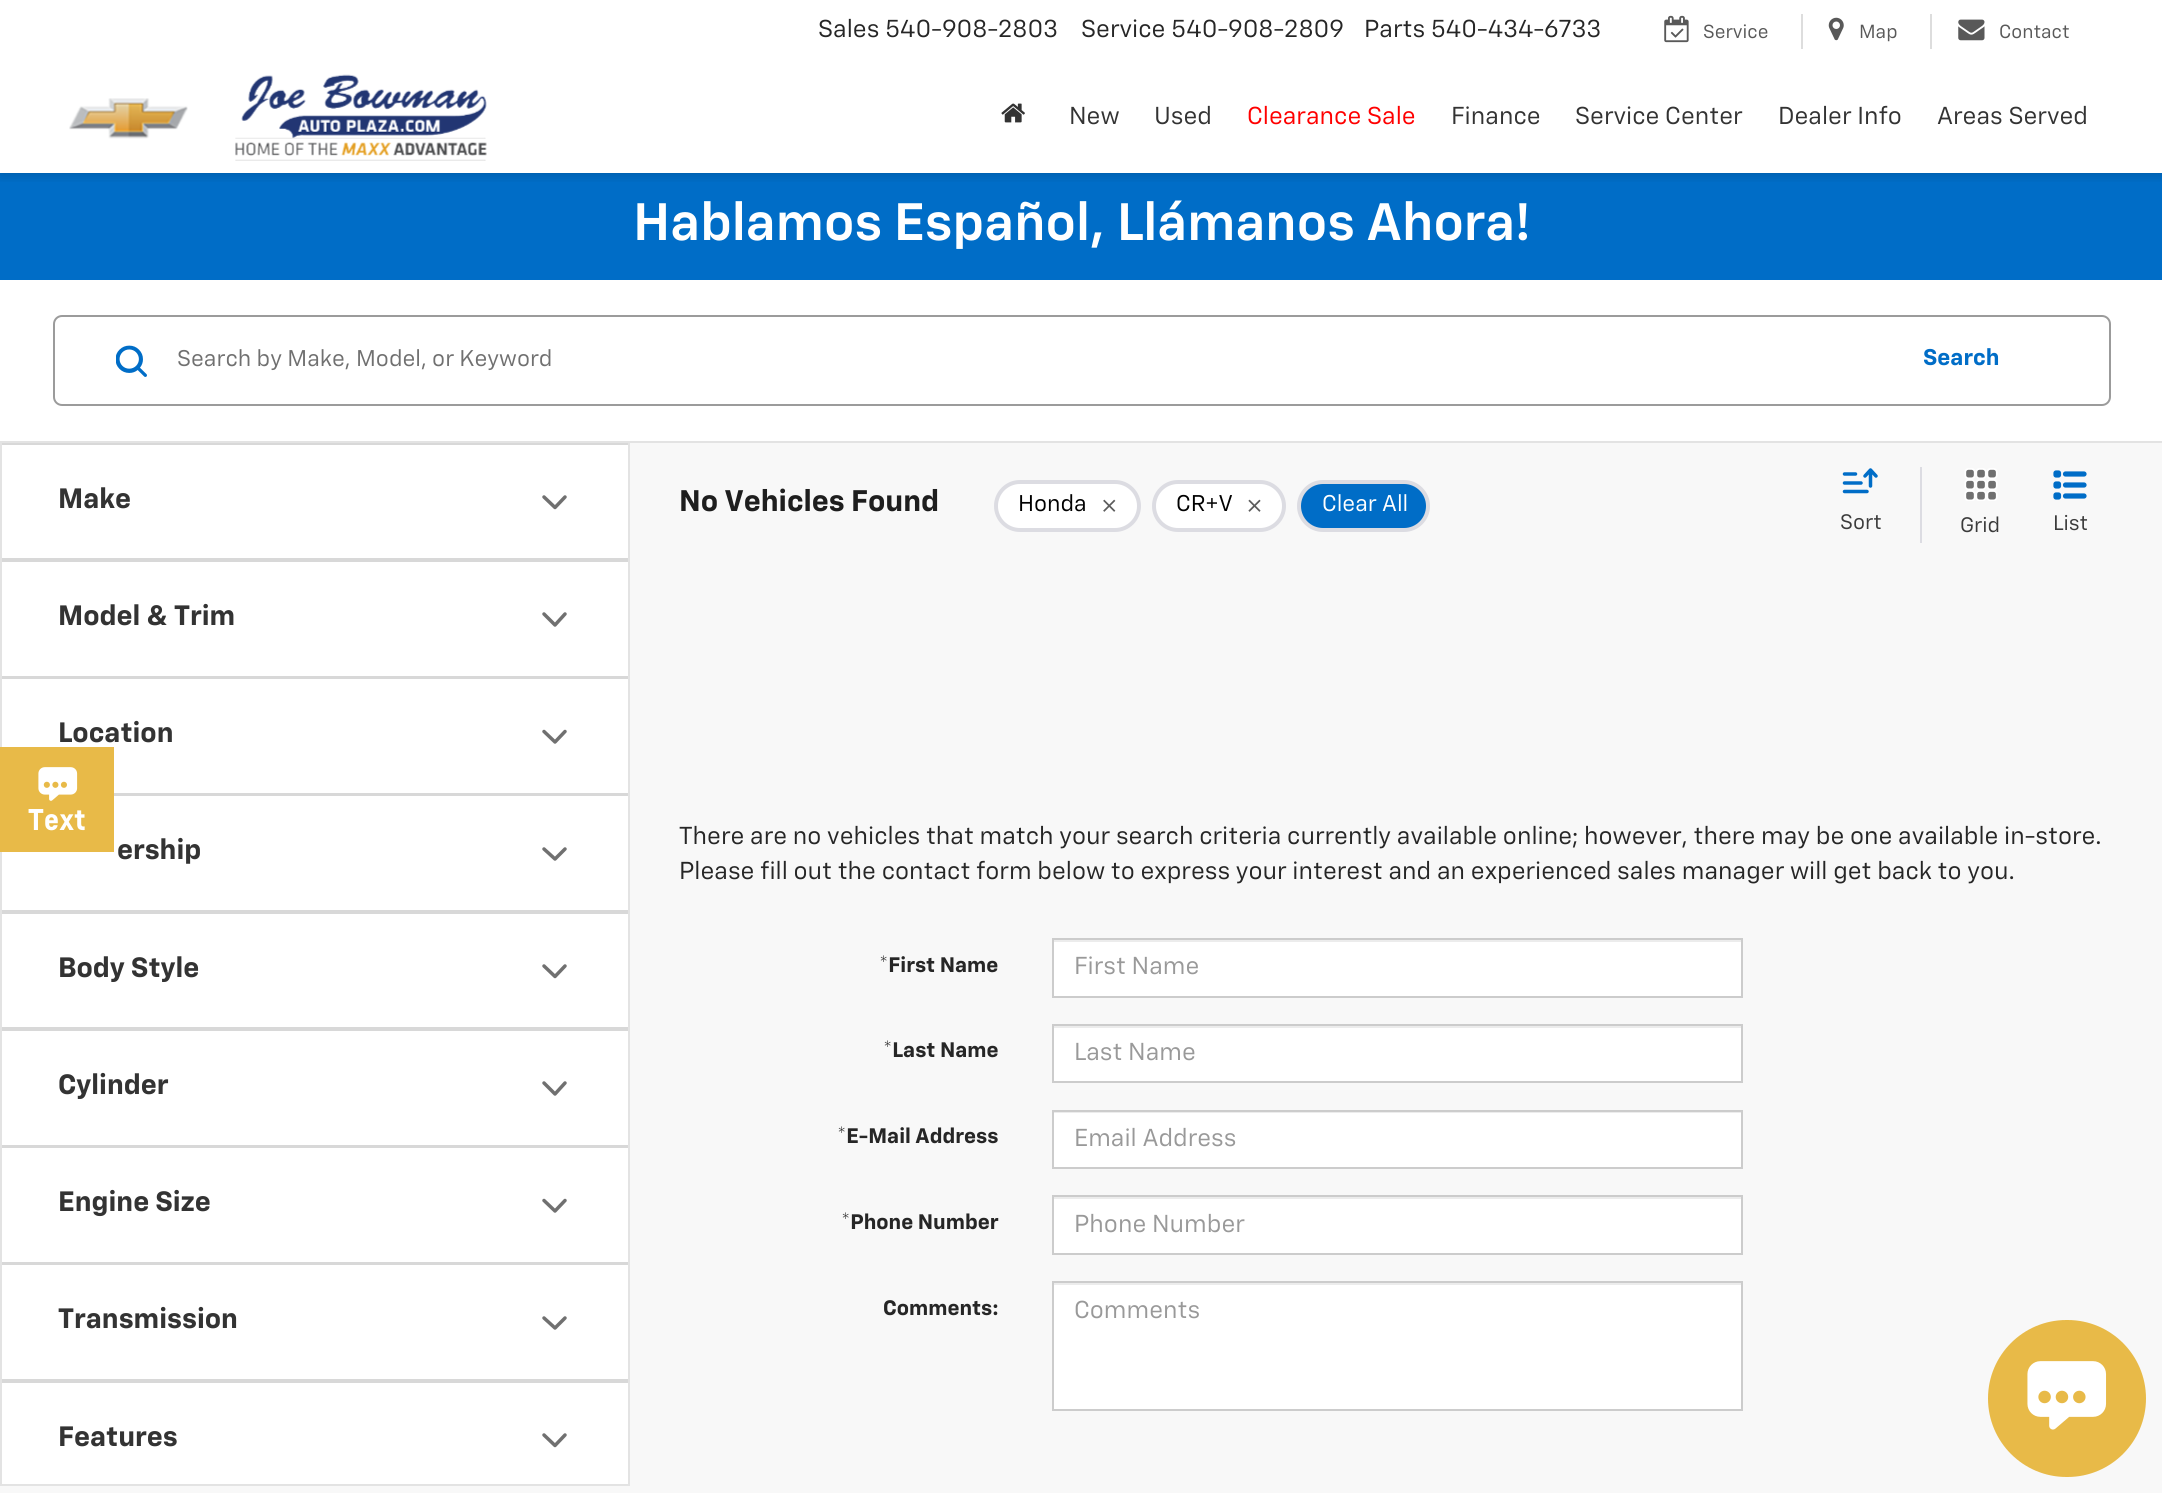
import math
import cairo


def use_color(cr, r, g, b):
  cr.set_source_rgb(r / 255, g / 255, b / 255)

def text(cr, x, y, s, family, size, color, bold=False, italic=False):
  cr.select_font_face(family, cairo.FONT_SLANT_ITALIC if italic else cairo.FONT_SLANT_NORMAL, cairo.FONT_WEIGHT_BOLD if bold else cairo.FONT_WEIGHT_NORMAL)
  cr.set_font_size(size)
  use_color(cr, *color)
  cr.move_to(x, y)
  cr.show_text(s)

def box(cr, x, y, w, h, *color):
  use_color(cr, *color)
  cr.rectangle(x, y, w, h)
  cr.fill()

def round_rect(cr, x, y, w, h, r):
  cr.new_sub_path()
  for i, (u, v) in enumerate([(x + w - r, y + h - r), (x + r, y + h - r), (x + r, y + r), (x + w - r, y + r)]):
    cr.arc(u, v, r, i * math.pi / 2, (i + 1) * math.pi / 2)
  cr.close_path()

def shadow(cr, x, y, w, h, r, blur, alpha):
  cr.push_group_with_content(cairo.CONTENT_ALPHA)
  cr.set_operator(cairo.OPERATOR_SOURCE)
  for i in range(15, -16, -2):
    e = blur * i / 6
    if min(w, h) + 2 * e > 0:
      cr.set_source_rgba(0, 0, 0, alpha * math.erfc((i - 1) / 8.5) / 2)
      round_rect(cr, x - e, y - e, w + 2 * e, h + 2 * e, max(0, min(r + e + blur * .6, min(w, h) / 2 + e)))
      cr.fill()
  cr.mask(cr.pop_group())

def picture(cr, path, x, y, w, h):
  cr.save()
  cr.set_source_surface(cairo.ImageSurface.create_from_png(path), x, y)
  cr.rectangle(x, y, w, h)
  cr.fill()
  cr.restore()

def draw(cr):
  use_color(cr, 255, 255, 255)
  cr.paint()
  box(cr, 0, 173, 2162, 107, 0, 109, 199)
  cr.save()
  cr.rectangle(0, 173, 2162, 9)
  cr.clip()
  use_color(cr, 0, 0, 0)
  shadow(cr, 0, 0, 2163, 173, 0, 7, 0.2)
  cr.restore()
  picture(cr, "img_01.png", 1664, 15, 25, 28)
  box(cr, 1801, 14, 2, 35, 221, 221, 221)
  picture(cr, "img_02.png", 1828, 17, 16, 24)
  box(cr, 1930, 14, 2, 35, 221, 221, 221)
  picture(cr, "img_03.png", 1958, 19, 27, 22)
  picture(cr, "img_04.png", 69, 98, 119, 41)
  picture(cr, "img_05.png", 235, 74, 252, 87)
  picture(cr, "img_06.png", 1001, 103, 24, 20)
  box(cr, 0, 443, 2162, 1050, 248, 248, 248)
  box(cr, 2, 445, 626, 1039, 255, 255, 255)
  box(cr, 628, 443, 2, 1043, 227, 227, 227)
  box(cr, 0, 1484, 630, 2, 227, 227, 227)
  box(cr, 0, 443, 2, 1043, 227, 227, 227)
  box(cr, 0, 747, 114, 105, 232, 186, 72)
  picture(cr, "img_07.png", 38, 767, 40, 34)
  box(cr, 0, 441, 2162, 2, 227, 227, 227)
  round_rect(cr, 54, 316, 2056, 89, 8)
  use_color(cr, 155, 155, 155)
  cr.stroke()
  picture(cr, "img_08.png", 116, 345, 31, 32)
  use_color(cr, 255, 255, 255)
  round_rect(cr, 996, 482, 143, 48, 24)
  cr.fill_preserve()
  use_color(cr, 220, 220, 226)
  cr.set_line_width(4)
  cr.stroke()
  picture(cr, "img_09.png", 1103, 499, 13, 13)
  use_color(cr, 255, 255, 255)
  round_rect(cr, 1154, 482, 130, 48, 24)
  cr.fill_preserve()
  use_color(cr, 220, 220, 226)
  cr.stroke()
  picture(cr, "img_10.png", 1248, 499, 13, 13)
  use_color(cr, 0, 109, 199)
  round_rect(cr, 1299, 482, 129, 48, 24)
  cr.fill_preserve()
  use_color(cr, 220, 220, 226)
  cr.stroke()
  cr.new_path()
  cr.move_to(1844.5, 491.5)
  cr.line_to(1867, 491.5)
  cr.move_to(1844.5, 483)
  cr.line_to(1861, 483)
  cr.move_to(1844.5, 474)
  cr.line_to(1855.5, 474)
  cr.move_to(1870.5, 486)
  cr.line_to(1870.5, 470)
  cr.move_to(1870.5, 470)
  cr.line_to(1876, 476)
  cr.move_to(1870.5, 470)
  cr.line_to(1865, 476)
  use_color(cr, 0, 109, 199)
  cr.set_line_width(3.5)
  cr.set_line_cap(cairo.LINE_CAP_ROUND)
  cr.set_line_join(cairo.LINE_JOIN_ROUND)
  cr.stroke()
  box(cr, 1920, 467, 2, 76, 220, 220, 226)
  picture(cr, "img_11.png", 1964, 468, 34, 33)
  cr.new_path()
  cr.move_to(2065.5, 474)
  cr.line_to(2084, 474)
  cr.move_to(2065.5, 485)
  cr.line_to(2084, 485)
  cr.move_to(2065.5, 496)
  cr.line_to(2084, 496)
  cr.move_to(2056, 475)
  cr.line_to(2058.5, 475)
  cr.line_to(2058.5, 473)
  cr.line_to(2056, 473)
  cr.close_path()
  cr.move_to(2056, 486)
  cr.line_to(2058.5, 486)
  cr.line_to(2058.5, 484)
  cr.line_to(2056, 484)
  cr.close_path()
  cr.move_to(2056, 497)
  cr.line_to(2058.5, 497)
  cr.line_to(2058.5, 495)
  cr.line_to(2056, 495)
  cr.close_path()
  use_color(cr, 0, 109, 199)
  cr.set_line_width(5.2)
  cr.stroke()
  box(cr, 2, 443, 626, 2, 216, 216, 216)
  box(cr, 2, 558, 626, 4, 216, 216, 216)
  cr.new_path()
  cr.move_to(544, 497)
  cr.line_to(555, 507.5)
  cr.line_to(565, 497)
  use_color(cr, 112, 112, 112)
  cr.set_line_width(3.5)
  cr.stroke()
  box(cr, 2, 676, 626, 3, 216, 216, 216)
  cr.new_path()
  cr.move_to(544, 614)
  cr.line_to(555, 625)
  cr.line_to(565, 614)
  use_color(cr, 112, 112, 112)
  cr.stroke()
  box(cr, 114, 793, 514, 3, 216, 216, 216)
  cr.new_path()
  cr.move_to(544, 731.5)
  cr.line_to(555, 742)
  cr.line_to(565, 731.5)
  use_color(cr, 112, 112, 112)
  cr.stroke()
  box(cr, 2, 910, 626, 4, 216, 216, 216)
  cr.new_path()
  cr.move_to(544, 849)
  cr.line_to(555, 859)
  cr.line_to(565, 849)
  use_color(cr, 112, 112, 112)
  cr.stroke()
  box(cr, 2, 1027, 626, 4, 216, 216, 216)
  cr.new_path()
  cr.move_to(544, 966)
  cr.line_to(555, 976.5)
  cr.line_to(565, 966)
  use_color(cr, 112, 112, 112)
  cr.stroke()
  box(cr, 2, 1145, 626, 3, 216, 216, 216)
  cr.new_path()
  cr.move_to(544, 1083)
  cr.line_to(555, 1094)
  cr.line_to(565, 1083)
  use_color(cr, 112, 112, 112)
  cr.stroke()
  box(cr, 2, 1262, 626, 3, 216, 216, 216)
  cr.new_path()
  cr.move_to(544, 1200.5)
  cr.line_to(555, 1211)
  cr.line_to(565, 1200.5)
  use_color(cr, 112, 112, 112)
  cr.stroke()
  box(cr, 2, 1379, 626, 4, 216, 216, 216)
  cr.new_path()
  cr.move_to(544, 1318)
  cr.line_to(555, 1328)
  cr.line_to(565, 1318)
  use_color(cr, 112, 112, 112)
  cr.stroke()
  cr.new_path()
  cr.move_to(544, 1435)
  cr.line_to(555, 1445.5)
  cr.line_to(565, 1435)
  cr.stroke()
  box(cr, 1054, 942, 687, 54, 255, 255, 255)
  box(cr, 1054, 940, 687, 2, 236, 236, 236)
  cr.rectangle(1053, 939, 689, 58)
  use_color(cr, 204, 204, 204)
  cr.set_line_width(2)
  cr.set_line_cap(cairo.LINE_CAP_BUTT)
  cr.set_line_join(cairo.LINE_JOIN_MITER)
  cr.stroke()
  box(cr, 1054, 1028, 687, 53, 255, 255, 255)
  box(cr, 1054, 1026, 687, 2, 236, 236, 236)
  cr.rectangle(1053, 1025, 689, 57)
  use_color(cr, 204, 204, 204)
  cr.stroke()
  box(cr, 1054, 1113, 687, 54, 255, 255, 255)
  box(cr, 1054, 1112, 687, 1, 236, 236, 236)
  cr.rectangle(1053, 1111, 689, 57)
  use_color(cr, 204, 204, 204)
  cr.stroke()
  box(cr, 1054, 1199, 687, 54, 255, 255, 255)
  box(cr, 1054, 1197, 687, 2, 236, 236, 236)
  cr.rectangle(1053, 1196, 689, 58)
  use_color(cr, 204, 204, 204)
  cr.stroke()
  box(cr, 1054, 1285, 687, 124, 255, 255, 255)
  box(cr, 1054, 1283, 687, 2, 236, 236, 236)
  cr.rectangle(1053, 1282, 689, 128)
  use_color(cr, 204, 204, 204)
  cr.stroke()
  use_color(cr, 232, 186, 72)
  round_rect(cr, 1988, 1320, 158, 157, 78.5)
  cr.fill()
  picture(cr, "img_12.png", 2027, 1361, 80, 69)
  text(cr, 818, 37, "Sales 540-908-2803", "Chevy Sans", 24.5, (38, 38, 38))
  text(cr, 1081, 37, "Service 540-908-2809", "Chevy Sans", 24.5, (38, 38, 38))
  text(cr, 1364, 37, "Parts 540-434-6733", "Chevy Sans", 24.5, (38, 38, 38))
  text(cr, 1703, 38, "Service", "Chevy Sans", 19, (89, 89, 89))
  text(cr, 1859, 38, "Map", "Chevy Sans", 19, (89, 89, 89))
  text(cr, 1999, 38, "Contact", "Chevy Sans", 19, (89, 89, 89))
  text(cr, 1069, 124, "New", "Chevy Sans", 24.5, (51, 51, 51))
  text(cr, 1154, 124, "Used", "Chevy Sans", 24.5, (51, 51, 51))
  text(cr, 1247, 124, "Clearance Sale", "Chevy Sans", 24.5, (255, 0, 0))
  text(cr, 1451, 124, "Finance", "Chevy Sans", 24.5, (51, 51, 51))
  text(cr, 1575, 124, "Service Center", "Chevy Sans", 24.5, (51, 51, 51))
  text(cr, 1778, 124, "Dealer Info", "Chevy Sans", 24.5, (51, 51, 51))
  text(cr, 1937, 124, "Areas Served", "Chevy Sans", 24.5, (51, 51, 51))
  text(cr, 28, 830, "Text", "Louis", 28, (255, 255, 255), bold=True)
  text(cr, 633, 240, "Hablamos Español, Llámanos Ahora!", "Chevy Sans SemiBold", 52.5, (255, 255, 255))
  text(cr, 177, 366, "Search by Make, Model, or Keyword", "Chevy Sans", 22.75, (112, 112, 112))
  text(cr, 1923, 365, "Search", "Chevy Sans", 22.75, (0, 109, 199), bold=True)
  text(cr, 679, 511, "No Vehicles Found", "Chevy Sans", 29.75, (30, 30, 30), bold=True)
  text(cr, 1018, 511, "Honda", "Chevy Sans", 22.75, (0, 0, 0))
  text(cr, 1176, 511, "CR+V", "Chevy Sans", 22.75, (0, 0, 0))
  text(cr, 1322, 511, "Clear All", "Chevy Sans", 22.75, (255, 255, 255))
  text(cr, 1840, 529, "Sort", "Chevy Sans", 21, (59, 59, 59))
  text(cr, 1960, 532, "Grid", "Chevy Sans", 21, (59, 59, 59))
  text(cr, 2053, 530, "List", "Chevy Sans", 21, (59, 59, 59))
  text(cr, 58, 508, "Make", "Chevy Sans", 28, (51, 51, 51), bold=True)
  text(cr, 58, 625, "Model & Trim", "Chevy Sans", 28, (51, 51, 51), bold=True)
  text(cr, 58, 742, "Location", "Chevy Sans", 28, (51, 51, 51), bold=True)
  text(cr, 117, 859, "ership", "Chevy Sans", 28, (51, 51, 51), bold=True)
  text(cr, 58, 977, "Body Style", "Chevy Sans", 28, (51, 51, 51), bold=True)
  text(cr, 58, 1094, "Cylinder", "Chevy Sans", 28, (51, 51, 51), bold=True)
  text(cr, 58, 1211, "Engine Size", "Chevy Sans", 28, (51, 51, 51), bold=True)
  text(cr, 58, 1328, "Transmission", "Chevy Sans", 28, (51, 51, 51), bold=True)
  text(cr, 58, 1446, "Features", "Chevy Sans", 28, (51, 51, 51), bold=True)
  text(cr, 679, 844, "There are no vehicles that match your search criteria currently available online; however, there may be one available in-store.", "Chevy Sans", 24.5, (38, 38, 38))
  text(cr, 679, 879, "Please fill out the contact form below to express your interest and an experienced sales manager will get back to you.", "Chevy Sans", 24.5, (38, 38, 38))
  text(cr, 879, 972, "*First Name", "Chevy Sans", 21, (38, 38, 38), bold=True)
  text(cr, 1074, 974, "First Name", "Chevy Sans", 24.5, (153, 153, 153))
  text(cr, 883, 1057, "*Last Name", "Chevy Sans", 21, (38, 38, 38), bold=True)
  text(cr, 1074, 1060, "Last Name", "Chevy Sans", 24.5, (153, 153, 153))
  text(cr, 837, 1143, "*E-Mail Address", "Chevy Sans", 21, (38, 38, 38), bold=True)
  text(cr, 1074, 1146, "Email Address", "Chevy Sans", 24.5, (153, 153, 153))
  text(cr, 841, 1229, "*Phone Number", "Chevy Sans", 21, (38, 38, 38), bold=True)
  text(cr, 1074, 1232, "Phone Number", "Chevy Sans", 24.5, (153, 153, 153))
  text(cr, 883, 1315, "Comments:", "Chevy Sans", 21, (38, 38, 38), bold=True)
  text(cr, 1074, 1318, "Comments", "Chevy Sans", 24.5, (153, 153, 153))


surface = cairo.ImageSurface(cairo.FORMAT_RGB24, 2162, 1493)
cr = cairo.Context(surface)
options = cairo.FontOptions()
options.set_hint_metrics(cairo.HINT_METRICS_OFF)
options.set_hint_style(cairo.HINT_STYLE_NONE)
cr.set_font_options(options)
cr.set_miter_limit(4)
draw(cr)
surface.write_to_png("out.png")
